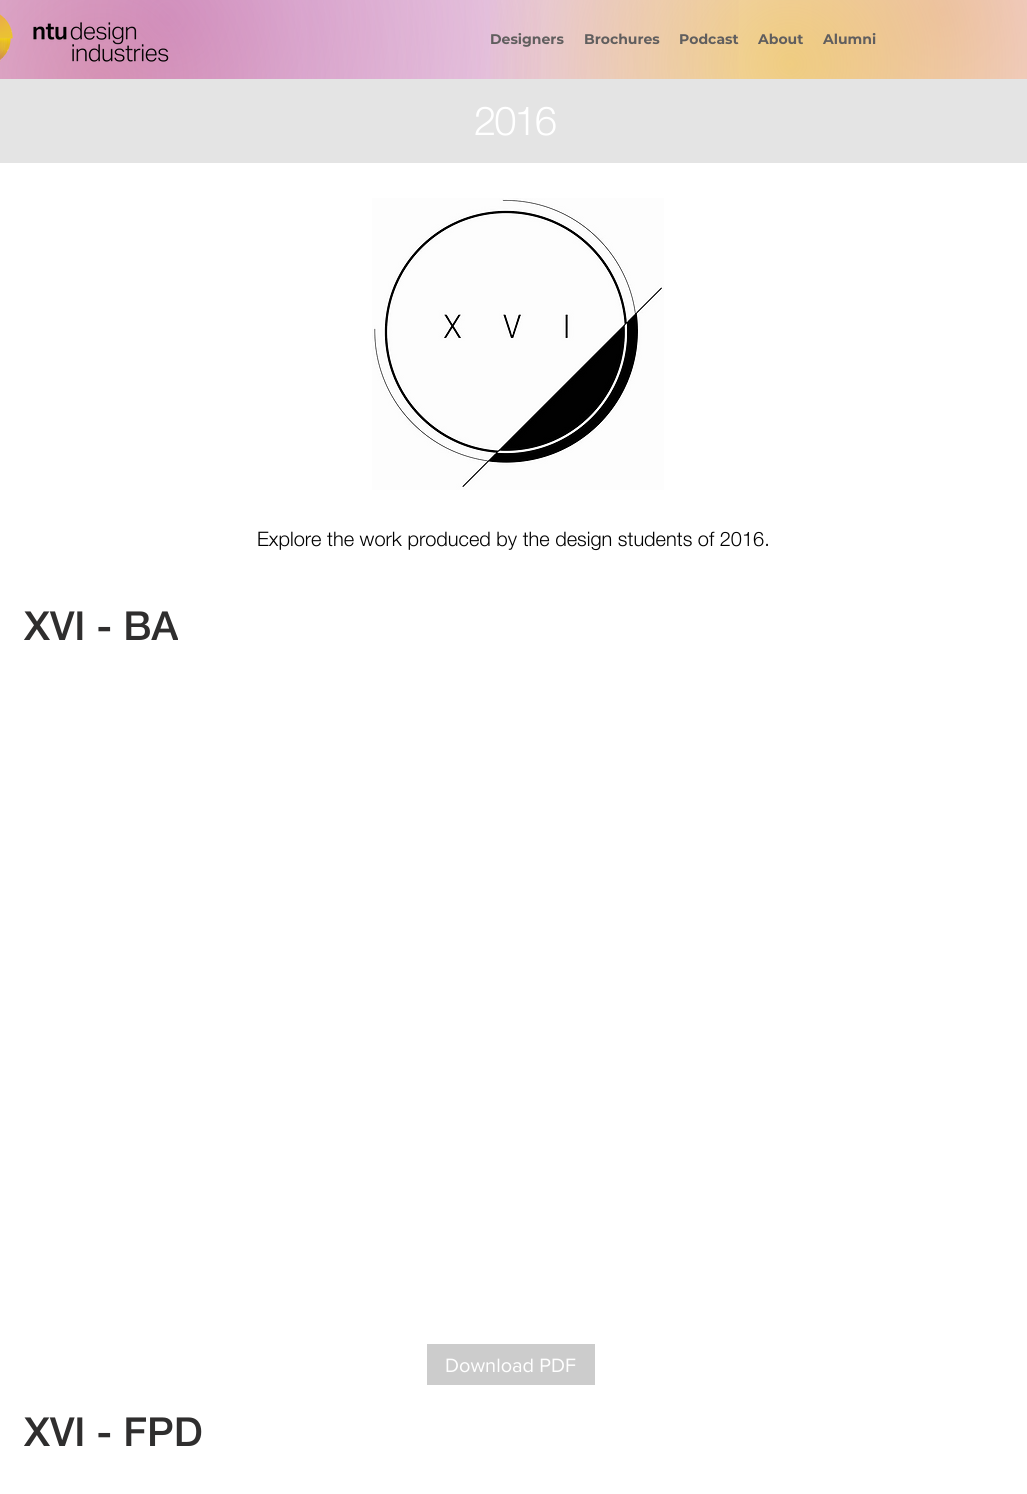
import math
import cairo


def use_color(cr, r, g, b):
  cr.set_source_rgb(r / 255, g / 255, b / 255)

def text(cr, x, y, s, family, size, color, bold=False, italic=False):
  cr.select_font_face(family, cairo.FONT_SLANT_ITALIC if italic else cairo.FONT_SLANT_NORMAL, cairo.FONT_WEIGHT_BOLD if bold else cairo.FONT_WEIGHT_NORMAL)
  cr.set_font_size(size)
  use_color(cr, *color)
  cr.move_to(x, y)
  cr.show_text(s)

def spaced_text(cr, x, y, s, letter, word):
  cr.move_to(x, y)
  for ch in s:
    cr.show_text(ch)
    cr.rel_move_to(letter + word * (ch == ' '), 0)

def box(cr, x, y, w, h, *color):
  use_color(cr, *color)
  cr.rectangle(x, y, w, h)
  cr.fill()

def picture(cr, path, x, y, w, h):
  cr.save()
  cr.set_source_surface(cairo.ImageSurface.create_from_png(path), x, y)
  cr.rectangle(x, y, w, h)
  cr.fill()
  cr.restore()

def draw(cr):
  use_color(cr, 255, 255, 255)
  cr.paint()
  gradient = cairo.RadialGradient(944, 11, 0, 944, 11, 947)
  gradient.add_color_stop_rgba(0, 0.929, 0.757, 0.765, 1)
  gradient.add_color_stop_rgba(0.7, 1, 1, 1, 1)
  cr.set_source(gradient)
  cr.rectangle(307, 0, 720, 79)
  cr.fill()
  gradient = cairo.RadialGradient(168, 17, 0, 168, 17, 861)
  gradient.add_color_stop_rgba(0, 0.549, 0.106, 0.725, 0.4)
  gradient.add_color_stop_rgba(0.7, 0.549, 0.106, 0.725, 0)
  cr.set_source(gradient)
  cr.rectangle(0, 0, 739, 79)
  cr.fill()
  gradient = cairo.RadialGradient(100, 79, 0, 100, 79, 931)
  gradient.add_color_stop_rgba(0, 0.824, 0.388, 0.412, 0.4)
  gradient.add_color_stop_rgba(0.5, 0.824, 0.388, 0.412, 0)
  cr.set_source(gradient)
  cr.rectangle(0, 0, 541, 79)
  cr.fill()
  gradient = cairo.RadialGradient(790, 64, 0, 790, 64, 793)
  gradient.add_color_stop_rgba(0, 0.925, 0.78, 0.027, 0.4)
  gradient.add_color_stop_rgba(0.4, 0.925, 0.78, 0.027, 0)
  cr.set_source(gradient)
  cr.rectangle(490, 0, 537, 79)
  cr.fill()
  picture(cr, "img_01.png", 0, 14, 13, 48)
  picture(cr, "img_02.png", 33, 22, 136, 40)
  box(cr, 0, 79, 1027, 84, 228, 228, 228)
  picture(cr, "img_03.png", 372, 198, 292, 292)
  box(cr, 427, 1344, 168, 41, 204, 204, 204)
  text(cr, 490, 44, "Designers", "Montserrat", 14, (96, 94, 94), bold=True)
  text(cr, 584, 44, "Brochures", "Montserrat", 14, (96, 94, 94), bold=True)
  text(cr, 679, 44, "Podcast", "Montserrat", 14, (96, 94, 94), bold=True)
  text(cr, 758, 44, "About", "Montserrat", 14, (96, 94, 94), bold=True)
  text(cr, 823, 44, "Alumni", "Montserrat", 14, (96, 94, 94), bold=True)
  cr.select_font_face("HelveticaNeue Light")
  cr.set_font_size(40)
  use_color(cr, 255, 255, 255)
  spaced_text(cr, 474, 135, "2016", -2, 0)
  text(cr, 257, 546, "Explore the work produced by the design students of 2016.", "HelveticaNeue Light", 20, (0, 0, 0))
  text(cr, 24, 640, "XVI - BA", "HelveticaNeue Medium", 40, (47, 46, 46))
  text(cr, 445, 1372, "Download PDF", "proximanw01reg", 20, (255, 255, 255))
  text(cr, 24, 1446, "XVI - FPD", "HelveticaNeue Medium", 40, (47, 46, 46))


surface = cairo.ImageSurface(cairo.FORMAT_RGB24, 1027, 1494)
cr = cairo.Context(surface)
options = cairo.FontOptions()
options.set_hint_metrics(cairo.HINT_METRICS_OFF)
options.set_hint_style(cairo.HINT_STYLE_NONE)
cr.set_font_options(options)
cr.set_miter_limit(4)
draw(cr)
surface.write_to_png("out.png")
